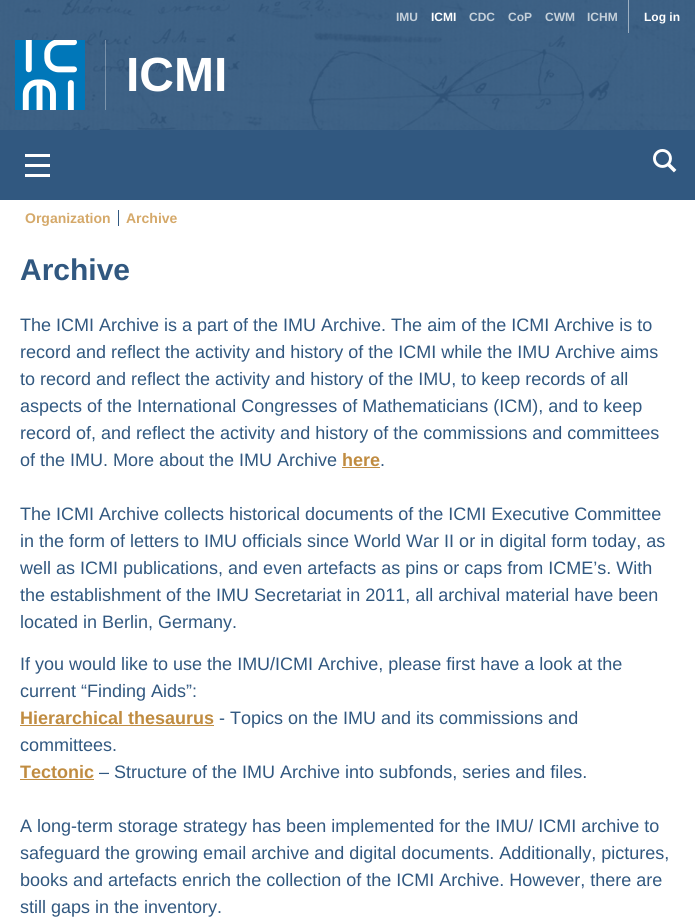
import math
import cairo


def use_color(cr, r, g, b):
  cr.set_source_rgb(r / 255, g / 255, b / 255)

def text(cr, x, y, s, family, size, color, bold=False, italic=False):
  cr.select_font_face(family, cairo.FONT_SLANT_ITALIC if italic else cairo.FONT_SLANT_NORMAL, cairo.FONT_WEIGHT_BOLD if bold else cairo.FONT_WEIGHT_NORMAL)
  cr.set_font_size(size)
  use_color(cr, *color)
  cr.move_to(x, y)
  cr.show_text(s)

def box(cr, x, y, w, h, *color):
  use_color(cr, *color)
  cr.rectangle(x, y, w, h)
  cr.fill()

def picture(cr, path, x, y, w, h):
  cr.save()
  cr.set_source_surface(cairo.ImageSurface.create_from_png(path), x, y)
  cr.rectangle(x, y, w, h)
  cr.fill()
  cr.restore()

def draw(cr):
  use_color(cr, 255, 255, 255)
  cr.paint()
  picture(cr, "img_01.png", 0, 0, 695, 130)
  box(cr, 628, 0, 1, 33, 158, 176, 194)
  cr.set_source_rgba(1, 1, 1, 0.32)
  cr.rectangle(105, 40, 1, 70)
  cr.fill()
  picture(cr, "img_02.png", 15, 40, 70, 70)
  box(cr, 0, 130, 695, 70, 49, 88, 128)
  box(cr, 25, 164, 25, 3, 255, 255, 255)
  box(cr, 25, 154, 25, 3, 255, 255, 255)
  box(cr, 25, 174, 25, 3, 255, 255, 255)
  picture(cr, "img_03.png", 653, 149, 24, 24)
  box(cr, 118, 210, 1, 16, 49, 88, 128)
  box(cr, 342, 467, 38, 1, 192, 140, 65)
  box(cr, 20, 725, 194, 1, 192, 140, 65)
  box(cr, 20, 779, 74, 1, 192, 140, 65)
  text(cr, 396, 21, "IMU", "Liberation Sans", 12, (197, 208, 218), bold=True)
  text(cr, 431, 21, "ICMI", "Liberation Sans", 12, (255, 255, 255), bold=True)
  text(cr, 469, 21, "CDC", "Liberation Sans", 12, (197, 208, 218), bold=True)
  text(cr, 508, 21, "CoP", "Liberation Sans", 12, (197, 208, 218), bold=True)
  text(cr, 545, 21, "CWM", "Liberation Sans", 12, (197, 208, 218), bold=True)
  text(cr, 587, 21, "ICHM", "Liberation Sans", 12, (197, 208, 218), bold=True)
  text(cr, 644, 21, "Log in", "Liberation Sans", 12, (255, 255, 255), bold=True)
  text(cr, 126, 91, "ICMI", "Liberation Sans", 48, (255, 255, 255), bold=True)
  text(cr, 25, 223, "Organization", "Liberation Sans", 14, (213, 169, 106), bold=True)
  text(cr, 126, 223, "Archive", "Liberation Sans", 14, (213, 169, 106), bold=True)
  text(cr, 20, 280, "Archive", "Liberation Sans", 30, (49, 88, 128), bold=True)
  text(cr, 20, 331, "The ICMI Archive is a part of the IMU Archive. The aim of the ICMI Archive is to", "Liberation Sans", 18, (49, 88, 128))
  text(cr, 20, 358, "record and reflect the activity and history of the ICMI while the IMU Archive aims", "Liberation Sans", 18, (49, 88, 128))
  text(cr, 20, 385, "to record and reflect the activity and history of the IMU, to keep records of all", "Liberation Sans", 18, (49, 88, 128))
  text(cr, 20, 412, "aspects of the International Congresses of Mathematicians (ICM), and to keep", "Liberation Sans", 18, (49, 88, 128))
  text(cr, 20, 439, "record of, and reflect the activity and history of the commissions and committees", "Liberation Sans", 18, (49, 88, 128))
  text(cr, 20, 466, "of the IMU. More about the IMU Archive", "Liberation Sans", 18, (49, 88, 128))
  text(cr, 342, 466, "here", "Liberation Sans", 18, (192, 140, 65), bold=True)
  text(cr, 380, 466, ".", "Liberation Sans", 18, (49, 88, 128))
  text(cr, 20, 520, "The ICMI Archive collects historical documents of the ICMI Executive Committee", "Liberation Sans", 18, (49, 88, 128))
  text(cr, 20, 547, "in the form of letters to IMU officials since World War II or in digital form today, as", "Liberation Sans", 18, (49, 88, 128))
  text(cr, 20, 574, "well as ICMI publications, and even artefacts as pins or caps from ICME’s. With", "Liberation Sans", 18, (49, 88, 128))
  text(cr, 20, 601, "the establishment of the IMU Secretariat in 2011, all archival material have been", "Liberation Sans", 18, (49, 88, 128))
  text(cr, 20, 628, "located in Berlin, Germany.", "Liberation Sans", 18, (49, 88, 128))
  text(cr, 20, 670, "If you would like to use the IMU/ICMI Archive, please first have a look at the", "Liberation Sans", 18, (49, 88, 128))
  text(cr, 20, 697, "current “Finding Aids”:", "Liberation Sans", 18, (49, 88, 128))
  text(cr, 20, 724, "Hierarchical thesaurus", "Liberation Sans", 18, (192, 140, 65), bold=True)
  text(cr, 219, 724, "- Topics on the IMU and its commissions and", "Liberation Sans", 18, (49, 88, 128))
  text(cr, 20, 751, "committees.", "Liberation Sans", 18, (49, 88, 128))
  text(cr, 20, 778, "Tectonic", "Liberation Sans", 18, (192, 140, 65), bold=True)
  text(cr, 99, 778, "– Structure of the IMU Archive into subfonds, series and files.", "Liberation Sans", 18, (49, 88, 128))
  text(cr, 20, 832, "A long-term storage strategy has been implemented for the IMU/ ICMI archive to", "Liberation Sans", 18, (49, 88, 128))
  text(cr, 20, 859, "safeguard the growing email archive and digital documents. Additionally, pictures,", "Liberation Sans", 18, (49, 88, 128))
  text(cr, 20, 886, "books and artefacts enrich the collection of the ICMI Archive. However, there are", "Liberation Sans", 18, (49, 88, 128))
  text(cr, 20, 913, "still gaps in the inventory.", "Liberation Sans", 18, (49, 88, 128))


surface = cairo.ImageSurface(cairo.FORMAT_RGB24, 695, 918)
cr = cairo.Context(surface)
options = cairo.FontOptions()
options.set_hint_metrics(cairo.HINT_METRICS_OFF)
options.set_hint_style(cairo.HINT_STYLE_NONE)
cr.set_font_options(options)
cr.set_miter_limit(4)
draw(cr)
surface.write_to_png("out.png")
